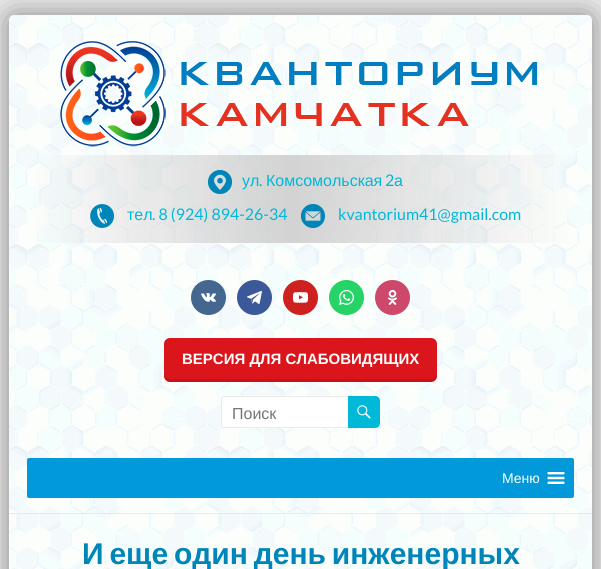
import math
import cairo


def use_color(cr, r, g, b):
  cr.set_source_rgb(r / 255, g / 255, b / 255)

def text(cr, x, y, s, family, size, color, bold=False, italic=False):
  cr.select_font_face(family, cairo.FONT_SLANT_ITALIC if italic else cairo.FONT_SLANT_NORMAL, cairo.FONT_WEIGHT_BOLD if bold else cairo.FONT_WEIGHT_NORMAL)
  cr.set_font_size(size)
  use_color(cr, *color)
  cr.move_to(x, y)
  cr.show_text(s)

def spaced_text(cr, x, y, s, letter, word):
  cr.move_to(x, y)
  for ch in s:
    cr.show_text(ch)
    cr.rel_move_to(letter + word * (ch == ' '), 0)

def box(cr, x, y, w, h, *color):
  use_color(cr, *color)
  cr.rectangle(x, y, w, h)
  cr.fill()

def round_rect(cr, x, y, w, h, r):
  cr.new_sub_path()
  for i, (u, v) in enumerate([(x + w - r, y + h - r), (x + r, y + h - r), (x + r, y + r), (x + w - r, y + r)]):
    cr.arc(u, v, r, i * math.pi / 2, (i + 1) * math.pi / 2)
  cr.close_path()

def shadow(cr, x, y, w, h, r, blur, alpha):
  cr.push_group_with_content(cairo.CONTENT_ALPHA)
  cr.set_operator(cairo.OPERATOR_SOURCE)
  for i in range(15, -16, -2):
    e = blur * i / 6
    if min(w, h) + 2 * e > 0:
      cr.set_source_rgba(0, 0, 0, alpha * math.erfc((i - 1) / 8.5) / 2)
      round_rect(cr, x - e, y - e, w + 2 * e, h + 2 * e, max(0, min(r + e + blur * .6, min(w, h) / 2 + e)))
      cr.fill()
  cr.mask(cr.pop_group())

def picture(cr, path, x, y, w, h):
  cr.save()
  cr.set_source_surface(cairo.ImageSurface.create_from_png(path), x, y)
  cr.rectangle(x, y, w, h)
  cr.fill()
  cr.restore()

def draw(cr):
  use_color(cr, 234, 234, 234)
  cr.paint()
  use_color(cr, 134, 134, 134)
  shadow(cr, 9, 15, 583, 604, 5, 15, 1)
  picture(cr, "img_01.png", 9, 15, 583, 554)
  box(cr, 9, 513, 583, 1, 234, 234, 234)
  picture(cr, "img_02.png", 60, 41, 478, 106)
  picture(cr, "img_03.png", 208, 170, 24, 24)
  picture(cr, "img_04.png", 90, 204, 24, 24)
  picture(cr, "img_05.png", 301, 204, 24, 24)
  use_color(cr, 69, 102, 142)
  cr.arc(208.5, 297.5, 17.5, 0, 2 * math.pi)
  cr.fill()
  picture(cr, "img_06.png", 201, 293, 15, 9)
  use_color(cr, 59, 89, 152)
  cr.arc(254.5, 297.5, 17.5, 0, 2 * math.pi)
  cr.fill()
  picture(cr, "img_07.png", 247, 291, 15, 13)
  use_color(cr, 205, 32, 31)
  cr.arc(300.5, 297.5, 17.5, 0, 2 * math.pi)
  cr.fill()
  picture(cr, "img_08.png", 293, 292, 15, 11)
  use_color(cr, 37, 211, 102)
  cr.arc(346.5, 297.5, 17.5, 0, 2 * math.pi)
  cr.fill()
  picture(cr, "img_09.png", 339, 289, 15, 16)
  use_color(cr, 205, 72, 107)
  cr.arc(392.5, 297.5, 17.5, 0, 2 * math.pi)
  cr.fill()
  picture(cr, "img_10.png", 388, 289, 9, 16)
  use_color(cr, 219, 21, 28)
  round_rect(cr, 164, 338, 273, 44, 6)
  cr.fill()
  cr.set_source_rgba(0, 0, 0, 0.1)
  cr.new_path()
  cr.move_to(164, 373)
  cr.line_to(164, 376)
  cr.curve_to(164, 379, 167, 382, 170, 382)
  cr.line_to(431, 382)
  cr.curve_to(434, 382, 437, 379, 437, 376)
  cr.line_to(437, 373)
  cr.curve_to(437, 376, 434, 379, 431, 379)
  cr.line_to(170, 379)
  cr.curve_to(167, 379, 164, 376, 164, 373)
  cr.close_path()
  cr.fill()
  use_color(cr, 255, 255, 255)
  round_rect(cr, 221.5, 396.5, 129, 31, 2.5)
  cr.fill_preserve()
  use_color(cr, 234, 234, 234)
  cr.set_line_width(1)
  cr.stroke()
  use_color(cr, 0, 184, 216)
  cr.new_path()
  cr.move_to(348, 396)
  cr.line_to(375, 396)
  cr.curve_to(378, 396, 380, 398, 380, 401)
  cr.line_to(380, 423)
  cr.curve_to(380, 426, 378, 428, 375, 428)
  cr.line_to(348, 428)
  cr.close_path()
  cr.fill()
  picture(cr, "img_11.png", 357, 405, 14, 14)
  use_color(cr, 1, 153, 217)
  round_rect(cr, 27, 458, 547, 40, 2)
  cr.fill()
  picture(cr, "img_12.png", 547, 472, 18, 12)
  text(cr, 242, 186, "ул", "Liberation Sans", 16, (0, 184, 216))
  text(cr, 259, 186, ".", "Lato", 16, (0, 184, 216))
  text(cr, 266, 186, "Комсомольская", "Liberation Sans", 16, (0, 184, 216))
  text(cr, 385, 186, "2", "Lato", 16, (0, 184, 216))
  text(cr, 394, 186, "а", "Liberation Sans", 16, (0, 184, 216))
  text(cr, 127, 220, "тел", "Liberation Sans", 16, (0, 184, 216))
  text(cr, 152, 220, ". 8 (924) 894-26-34", "Lato", 16, (0, 184, 216))
  text(cr, 338, 220, "kvantorium41@gmail.com", "Lato", 16, (0, 184, 216))
  text(cr, 182, 364, "ВЕРСИЯ ДЛЯ СЛАБОВИДЯЩИХ", "Liberation Sans", 15, (255, 255, 255), bold=True)
  text(cr, 232, 419, "Поиск", "Liberation Sans", 16, (117, 117, 117))
  text(cr, 502, 483, "Меню", "Liberation Sans", 14, (255, 255, 255))
  cr.select_font_face("Liberation Sans", cairo.FONT_SLANT_NORMAL, cairo.FONT_WEIGHT_BOLD)
  cr.set_font_size(30)
  use_color(cr, 0, 133, 185)
  spaced_text(cr, 82, 564, "И еще один день инженерных", 0, -2.5)


surface = cairo.ImageSurface(cairo.FORMAT_RGB24, 601, 569)
cr = cairo.Context(surface)
options = cairo.FontOptions()
options.set_hint_metrics(cairo.HINT_METRICS_OFF)
options.set_hint_style(cairo.HINT_STYLE_NONE)
cr.set_font_options(options)
cr.set_miter_limit(4)
draw(cr)
surface.write_to_png("out.png")
